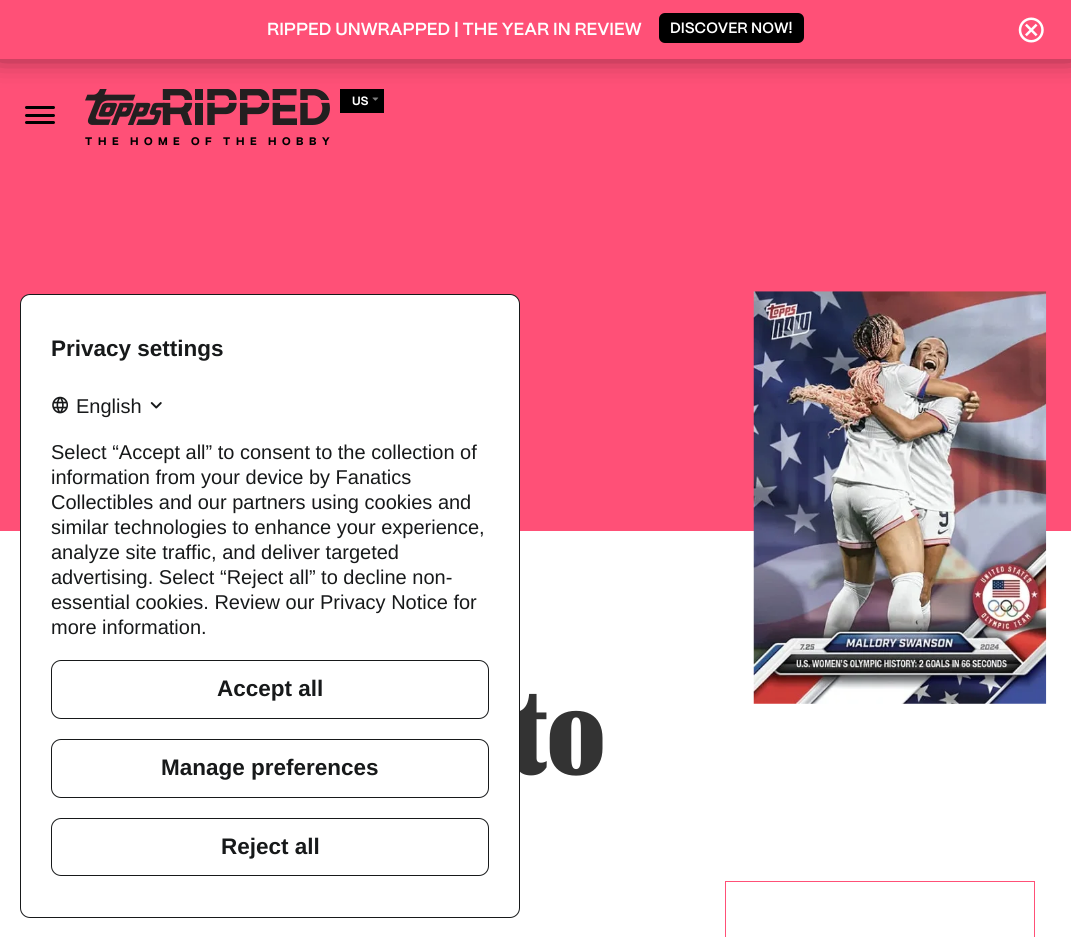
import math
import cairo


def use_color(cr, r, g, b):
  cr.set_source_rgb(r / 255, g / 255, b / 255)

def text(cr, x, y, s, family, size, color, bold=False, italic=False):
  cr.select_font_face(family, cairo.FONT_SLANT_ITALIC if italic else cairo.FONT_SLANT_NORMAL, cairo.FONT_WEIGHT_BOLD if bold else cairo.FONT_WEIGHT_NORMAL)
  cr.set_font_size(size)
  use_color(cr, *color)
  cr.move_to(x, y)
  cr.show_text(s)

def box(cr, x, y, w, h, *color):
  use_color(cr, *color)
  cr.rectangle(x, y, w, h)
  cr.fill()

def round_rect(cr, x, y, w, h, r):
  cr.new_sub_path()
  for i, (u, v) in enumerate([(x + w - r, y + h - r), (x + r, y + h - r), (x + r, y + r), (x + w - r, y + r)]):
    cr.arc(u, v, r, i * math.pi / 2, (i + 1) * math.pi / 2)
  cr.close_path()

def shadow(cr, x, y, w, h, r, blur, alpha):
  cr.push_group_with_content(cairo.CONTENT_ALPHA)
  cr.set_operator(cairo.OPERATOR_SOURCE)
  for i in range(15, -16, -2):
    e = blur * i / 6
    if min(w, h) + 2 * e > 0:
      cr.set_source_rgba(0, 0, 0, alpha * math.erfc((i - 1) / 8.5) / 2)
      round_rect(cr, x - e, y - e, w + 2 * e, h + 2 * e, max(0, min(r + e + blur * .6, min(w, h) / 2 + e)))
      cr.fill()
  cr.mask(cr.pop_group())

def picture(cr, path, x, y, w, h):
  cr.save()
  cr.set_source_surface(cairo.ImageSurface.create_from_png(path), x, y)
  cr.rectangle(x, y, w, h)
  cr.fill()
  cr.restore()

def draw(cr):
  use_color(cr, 255, 255, 255)
  cr.paint()
  box(cr, 0, 59, 1071, 472, 255, 80, 119)
  box(cr, 340, 89, 44, 24, 0, 0, 0)
  picture(cr, "img_03.png", 85, 89, 245, 36)
  use_color(cr, 0, 0, 0)
  shadow(cr, -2, -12, 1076, 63, 0, 15, 0.75)
  box(cr, 0, 0, 1071, 59, 255, 80, 119)
  use_color(cr, 0, 0, 0)
  round_rect(cr, 659, 13, 145, 30, 6)
  cr.fill()
  picture(cr, "img_01.png", 1018, 17, 26, 26)
  round_rect(cr, 25, 106, 30, 3, 1.5)
  cr.fill()
  round_rect(cr, 25, 114, 30, 3, 1.5)
  cr.fill()
  round_rect(cr, 25, 121, 30, 3, 1.5)
  cr.fill()
  picture(cr, "img_02.png", 372, 97, 7, 4)
  picture(cr, "img_04.png", 753, 291, 294, 413)
  cr.rectangle(725.5, 881.5, 309, 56)
  use_color(cr, 255, 80, 119)
  cr.set_line_width(1)
  cr.stroke()
  text(cr, 267, 35, "RIPPED UNWRAPPED | THE YEAR IN REVIEW", "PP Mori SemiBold", 17.5, (255, 255, 255))
  text(cr, 670, 33, "DISCOVER NOW!", "PP Mori SemiBold", 15, (255, 255, 255))
  text(cr, 352, 105, "US", "PP Mori", 12, (255, 255, 255), bold=True)
  text(cr, 85, 145, "T", "PP Mori ExtraBold", 11, (0, 0, 0))
  text(cr, 98, 145, "H", "PP Mori ExtraBold", 11, (0, 0, 0))
  text(cr, 112, 145, "E", "PP Mori ExtraBold", 11, (0, 0, 0))
  text(cr, 130, 145, "H", "PP Mori ExtraBold", 11, (0, 0, 0))
  text(cr, 144, 145, "O", "PP Mori ExtraBold", 11, (0, 0, 0))
  text(cr, 158, 145, "M", "PP Mori ExtraBold", 11, (0, 0, 0))
  text(cr, 173, 145, "E", "PP Mori ExtraBold", 11, (0, 0, 0))
  text(cr, 191, 145, "O", "PP Mori ExtraBold", 11, (0, 0, 0))
  text(cr, 205, 145, "F", "PP Mori ExtraBold", 11, (0, 0, 0))
  text(cr, 223, 145, "T", "PP Mori ExtraBold", 11, (0, 0, 0))
  text(cr, 236, 145, "H", "PP Mori ExtraBold", 11, (0, 0, 0))
  text(cr, 250, 145, "E", "PP Mori ExtraBold", 11, (0, 0, 0))
  text(cr, 268, 145, "H", "PP Mori ExtraBold", 11, (0, 0, 0))
  text(cr, 282, 145, "O", "PP Mori ExtraBold", 11, (0, 0, 0))
  text(cr, 296, 145, "B", "PP Mori ExtraBold", 11, (0, 0, 0))
  text(cr, 309, 145, "B", "PP Mori ExtraBold", 11, (0, 0, 0))
  text(cr, 322, 145, "Y", "PP Mori ExtraBold", 11, (0, 0, 0))
  text(cr, 509, 774, "to", "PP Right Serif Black", 120, (51, 51, 51))
  use_color(cr, 255, 255, 255)
  round_rect(cr, 20.5, 294.5, 499, 623, 9.5)
  cr.fill_preserve()
  use_color(cr, 23, 25, 26)
  cr.stroke()
  text(cr, 51, 356, "Privacy settings", "Liberation Sans", 22.5, (23, 25, 26), bold=True)
  picture(cr, "img_05.png", 52, 396, 16, 18)
  text(cr, 76, 413, "English", "Liberation Sans", 20, (23, 25, 26))
  picture(cr, "img_06.png", 150, 402, 12, 7)
  text(cr, 51, 459, "Select “Accept all” to consent to the collection of", "Liberation Sans", 20, (23, 25, 26))
  text(cr, 51, 484, "information from your device by Fanatics", "Liberation Sans", 20, (23, 25, 26))
  text(cr, 51, 509, "Collectibles and our partners using cookies and", "Liberation Sans", 20, (23, 25, 26))
  text(cr, 51, 534, "similar technologies to enhance your experience,", "Liberation Sans", 20, (23, 25, 26))
  text(cr, 51, 559, "analyze site traffic, and deliver targeted", "Liberation Sans", 20, (23, 25, 26))
  text(cr, 51, 584, "advertising. Select “Reject all” to decline non-", "Liberation Sans", 20, (23, 25, 26))
  text(cr, 51, 609, "essential cookies. Review our Privacy Notice for", "Liberation Sans", 20, (23, 25, 26))
  text(cr, 51, 634, "more information.", "Liberation Sans", 20, (23, 25, 26))
  round_rect(cr, 51.5, 660.5, 437, 58, 9.5)
  cr.stroke()
  text(cr, 217, 696, "Accept all", "Liberation Sans", 22.5, (23, 25, 26), bold=True)
  round_rect(cr, 51.5, 739.5, 437, 58, 9.5)
  cr.stroke()
  text(cr, 161, 775, "Manage preferences", "Liberation Sans", 22.5, (23, 25, 26), bold=True)
  round_rect(cr, 51.5, 818.5, 437, 57, 9.5)
  cr.stroke()
  text(cr, 221, 854, "Reject all", "Liberation Sans", 22.5, (23, 25, 26), bold=True)


surface = cairo.ImageSurface(cairo.FORMAT_RGB24, 1071, 937)
cr = cairo.Context(surface)
options = cairo.FontOptions()
options.set_hint_metrics(cairo.HINT_METRICS_OFF)
options.set_hint_style(cairo.HINT_STYLE_NONE)
cr.set_font_options(options)
cr.set_miter_limit(4)
draw(cr)
surface.write_to_png("out.png")
